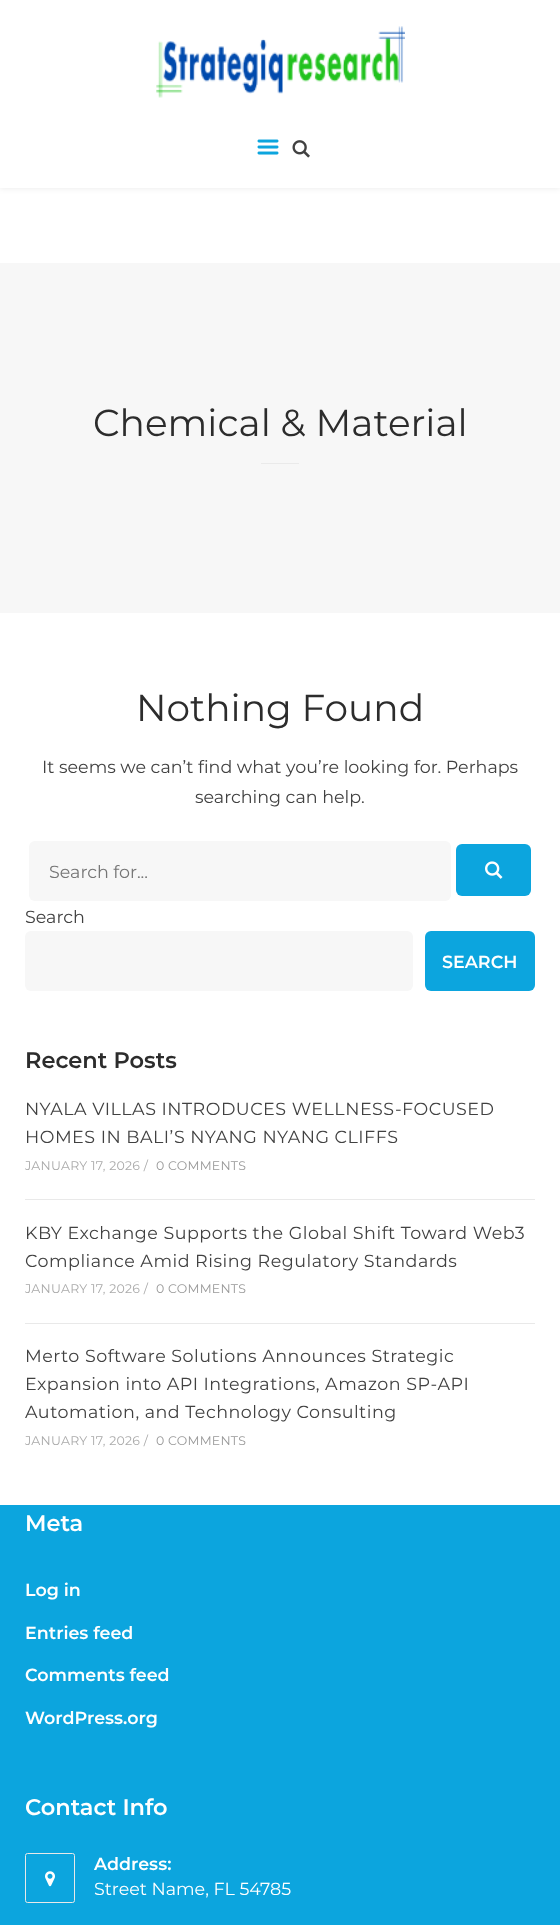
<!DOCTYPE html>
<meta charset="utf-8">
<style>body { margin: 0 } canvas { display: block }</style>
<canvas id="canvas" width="560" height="1925"></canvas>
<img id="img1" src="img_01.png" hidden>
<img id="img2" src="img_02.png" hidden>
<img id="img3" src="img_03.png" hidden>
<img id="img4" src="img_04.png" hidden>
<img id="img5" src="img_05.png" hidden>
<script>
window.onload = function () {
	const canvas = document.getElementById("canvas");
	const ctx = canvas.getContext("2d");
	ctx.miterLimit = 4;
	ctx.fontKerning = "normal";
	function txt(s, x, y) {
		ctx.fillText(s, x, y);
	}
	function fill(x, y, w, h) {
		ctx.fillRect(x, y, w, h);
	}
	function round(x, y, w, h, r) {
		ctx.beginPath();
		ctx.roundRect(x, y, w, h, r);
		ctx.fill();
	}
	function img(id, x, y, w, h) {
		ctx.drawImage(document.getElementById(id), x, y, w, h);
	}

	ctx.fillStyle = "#FFFFFF";
	fill(0, 0, 560, 1925);
	ctx.fillStyle = "rgba(0, 0, 0, 0.09)";
	ctx.filter = "blur(3px)";
	ctx.beginPath();
	ctx.rect(0, 0, 560, 188);
	ctx.fill();
	ctx.filter = "none";
	ctx.fillStyle = "#FFFFFF";
	fill(0, 0, 560, 188);
	img("img1", 156, 26, 249, 72);
	img("img2", 257, 139, 22, 16);
	img("img3", 292, 140, 18, 18);
	ctx.fillStyle = "#F7F7F7";
	fill(0, 263, 560, 350);
	ctx.fillStyle = "#EAEAEA";
	fill(261, 463, 38, 1);
	ctx.fillStyle = "#F7F7F7";
	round(29, 841, 422, 60, 6);
	ctx.fillStyle = "#0CA5DE";
	round(456, 844, 75, 52, 6);
	img("img4", 485, 861, 18, 18);
	ctx.fillStyle = "#F7F7F7";
	round(25, 931, 388, 60, 6);
	ctx.fillStyle = "#0CA5DE";
	round(425, 931, 110, 60, 6);
	ctx.fillStyle = "#E9E9E9";
	fill(25, 1199, 510, 1);
	fill(25, 1323, 510, 1);
	ctx.fillStyle = "#0CA5DE";
	fill(0, 1505, 560, 420);
	ctx.beginPath();
	ctx.roundRect(25.5, 1853.5, 49, 49, 2);
	ctx.strokeStyle = "#E9E9E9";
	ctx.stroke();
	img("img5", 45, 1871, 10, 16);
	ctx.font = "37.5px Montserrat";
	ctx.fillStyle = "#2C2C2C";
	txt("Chemical & Material", 93, 436);
	txt("Nothing Found", 136, 721);
	ctx.font = "17.5px Montserrat";
	ctx.fillStyle = "#414141";
	txt("It seems we can’t find what you’re looking for. Perhaps", 42, 773);
	txt("searching can help.", 195, 803);
	ctx.fillStyle = "#757575";
	txt("Search for...", 49, 878);
	ctx.fillStyle = "#414141";
	txt("Search", 25, 923);
	ctx.font = "600 17.5px Montserrat";
	ctx.fillStyle = "#FFFFFF";
	txt("SEARCH", 442, 968);
	ctx.font = "600 22.5px Montserrat";
	ctx.fillStyle = "#2C2C2C";
	txt("Recent Posts", 25, 1068);
	ctx.letterSpacing = "0.5px";
	ctx.font = "17.5px Montserrat";
	ctx.fillStyle = "#414141";
	txt("NYALA VILLAS INTRODUCES WELLNESS-FOCUSED", 25, 1115);
	txt("HOMES IN BALI’S NYANG NYANG CLIFFS", 25, 1143);
	ctx.letterSpacing = "0.25px";
	ctx.font = "12.5px Montserrat";
	ctx.fillStyle = "#AAAAAA";
	txt("JANUARY 17, 2026 /", 25, 1170);
	ctx.fillStyle = "#999999";
	txt("0 COMMENTS", 156, 1170);
	ctx.letterSpacing = "0.5px";
	ctx.font = "17.5px Montserrat";
	ctx.fillStyle = "#414141";
	txt("KBY Exchange Supports the Global Shift Toward Web3", 25, 1239);
	txt("Compliance Amid Rising Regulatory Standards", 25, 1267);
	ctx.letterSpacing = "0.25px";
	ctx.font = "12.5px Montserrat";
	ctx.fillStyle = "#AAAAAA";
	txt("JANUARY 17, 2026 /", 25, 1293);
	ctx.fillStyle = "#999999";
	txt("0 COMMENTS", 156, 1293);
	ctx.letterSpacing = "0.5px";
	ctx.font = "17.5px Montserrat";
	ctx.fillStyle = "#414141";
	txt("Merto Software Solutions Announces Strategic", 25, 1362);
	txt("Expansion into API Integrations, Amazon SP-API", 25, 1390);
	txt("Automation, and Technology Consulting", 25, 1418);
	ctx.letterSpacing = "0.25px";
	ctx.font = "12.5px Montserrat";
	ctx.fillStyle = "#AAAAAA";
	txt("JANUARY 17, 2026 /", 25, 1445);
	ctx.fillStyle = "#999999";
	txt("0 COMMENTS", 156, 1445);
	ctx.letterSpacing = "0px";
	ctx.font = "600 22.5px Montserrat";
	ctx.fillStyle = "#FFFFFF";
	txt("Meta", 25, 1531);
	ctx.font = "600 17.5px Montserrat";
	txt("Log in", 25, 1596);
	txt("Entries feed", 25, 1639);
	txt("Comments feed", 25, 1681);
	txt("WordPress.org", 25, 1724);
	ctx.font = "600 22.5px Montserrat";
	txt("Contact Info", 25, 1815);
	ctx.font = "600 17.5px Montserrat";
	txt("Address:", 94, 1870);
	ctx.font = "17.5px Montserrat";
	txt("Street Name, FL 54785", 94, 1895);
};
</script>
